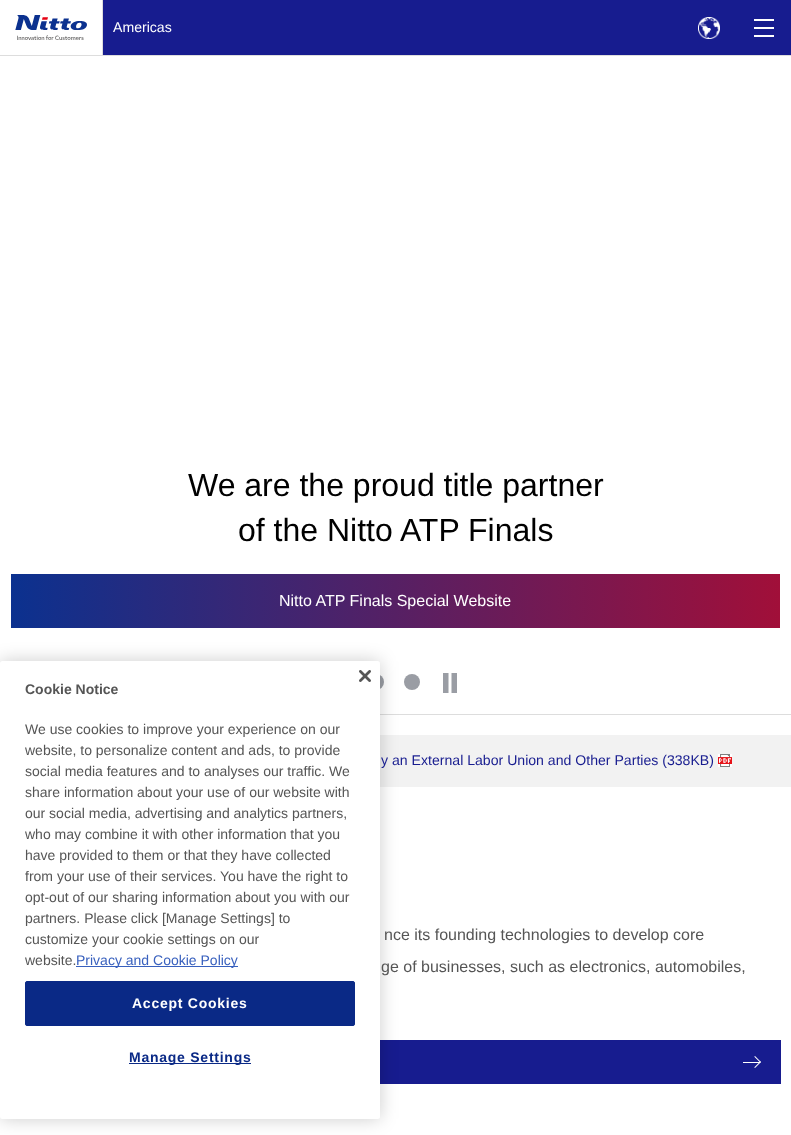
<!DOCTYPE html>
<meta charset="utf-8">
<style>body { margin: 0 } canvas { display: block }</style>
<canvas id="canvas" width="791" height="1135"></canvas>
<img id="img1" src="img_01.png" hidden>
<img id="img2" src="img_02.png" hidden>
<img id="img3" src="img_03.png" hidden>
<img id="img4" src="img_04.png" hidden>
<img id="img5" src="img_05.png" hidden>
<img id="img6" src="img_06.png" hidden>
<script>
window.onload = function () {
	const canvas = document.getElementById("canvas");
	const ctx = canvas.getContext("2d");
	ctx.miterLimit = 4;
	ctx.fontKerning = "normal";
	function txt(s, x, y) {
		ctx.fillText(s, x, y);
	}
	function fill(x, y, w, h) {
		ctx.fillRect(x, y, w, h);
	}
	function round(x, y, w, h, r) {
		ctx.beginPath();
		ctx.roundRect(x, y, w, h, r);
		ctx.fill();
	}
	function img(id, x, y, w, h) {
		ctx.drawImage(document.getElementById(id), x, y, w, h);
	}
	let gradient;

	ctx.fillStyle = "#FFFFFF";
	fill(0, 0, 791, 1135);
	ctx.fillStyle = "#DDDDDD";
	fill(0, 55, 791, 1);
	fill(102, 0, 1, 55);
	img("img1", 15, 15, 72, 25);
	ctx.fillStyle = "#171C8F";
	fill(103, 0, 688, 55);
	img("img2", 698, 17, 22, 22);
	ctx.fillStyle = "#FFFFFF";
	fill(754, 19, 20, 2);
	fill(754, 27, 20, 2);
	fill(754, 35, 20, 2);
	gradient = ctx.createLinearGradient(11, 601, 780, 601);
	gradient.addColorStop(0, "#0B318F");
	gradient.addColorStop(1, "#A10F39");
	ctx.fillStyle = gradient;
	fill(11, 574, 769, 54);
	ctx.fillStyle = "#DDDDDD";
	fill(380, 714, 411, 1);
	ctx.fillStyle = "#9A9DA4";
	ctx.beginPath();
	ctx.arc(376, 682, 8, 0, Math.PI * 2);
	ctx.fill();
	ctx.beginPath();
	ctx.arc(412, 682, 8, 0, Math.PI * 2);
	ctx.fill();
	img("img3", 443, 673, 14, 20);
	ctx.fillStyle = "#F2F2F2";
	fill(380, 735, 411, 52);
	img("img4", 718, 754, 14, 13);
	ctx.fillStyle = "#171C8F";
	fill(380, 1040, 401, 44);
	img("img5", 743, 1056, 18, 12);
	ctx.fillStyle = "rgba(0, 0, 0, 0.2)";
	ctx.filter = "blur(9px)";
	ctx.beginPath();
	ctx.roundRect(0, 661, 380, 458, 2.5);
	ctx.fill();
	ctx.filter = "none";
	ctx.fillStyle = "#FFFFFF";
	round(0, 661, 380, 458, 2.5);
	img("img6", 359, 670, 12, 12);
	ctx.fillStyle = "#3860BE";
	fill(76, 966, 162, 1);
	ctx.fillStyle = "#0A2986";
	ctx.beginPath();
	ctx.roundRect(25.5, 981.5, 329, 44, 1.5);
	ctx.fill();
	ctx.strokeStyle = "#0A2986";
	ctx.stroke();
	fill(129, 1063, 122, 1);
	ctx.font = "14.1px Liberation Sans";
	ctx.fillStyle = "#FFFFFF";
	txt("Americas", 113, 32);
	ctx.font = "32px Liberation Sans";
	ctx.fillStyle = "#000000";
	txt("We are the proud title partner", 188, 496);
	txt("of the Nitto ATP Finals", 238, 541);
	ctx.font = "16px Liberation Sans";
	ctx.fillStyle = "#FFFFFF";
	txt("Nitto ATP Finals Special Website", 279, 606);
	ctx.font = "14.1px Liberation Sans";
	ctx.fillStyle = "#171C8F";
	txt("y an External Labor Union and Other Parties (338KB)", 381, 765);
	ctx.font = "16px Liberation Sans";
	ctx.fillStyle = "#555555";
	txt("nce its founding technologies to develop core", 384, 940);
	txt("ge of businesses, such as electronics, automobiles,", 381, 972);
	ctx.font = "bold 14px Liberation Sans";
	txt("Cookie Notice", 25, 694);
	ctx.font = "14px Liberation Sans";
	txt("We use cookies to improve your experience on our", 25, 734);
	txt("website, to personalize content and ads, to provide", 25, 755);
	txt("social media features and to analyses our traffic. We", 25, 776);
	txt("share information about your use of our website with", 25, 797);
	txt("our social media, advertising and analytics partners,", 25, 818);
	txt("who may combine it with other information that you", 25, 839);
	txt("have provided to them or that they have collected", 25, 860);
	txt("from your use of their services. You have the right to", 25, 881);
	txt("opt-out of our sharing information about you with our", 25, 902);
	txt("partners. Please click [Manage Settings] to", 25, 923);
	txt("customize your cookie settings on our", 25, 944);
	txt("website.", 25, 965);
	ctx.fillStyle = "#3860BE";
	txt("Privacy and Cookie Policy", 76, 965);
	ctx.letterSpacing = "0.75px";
	ctx.font = "bold 14px Liberation Sans";
	ctx.fillStyle = "#FFFFFF";
	txt("Accept Cookies", 132, 1008);
	ctx.fillStyle = "#0A2986";
	txt("Manage Settings", 129, 1062);
};
</script>
